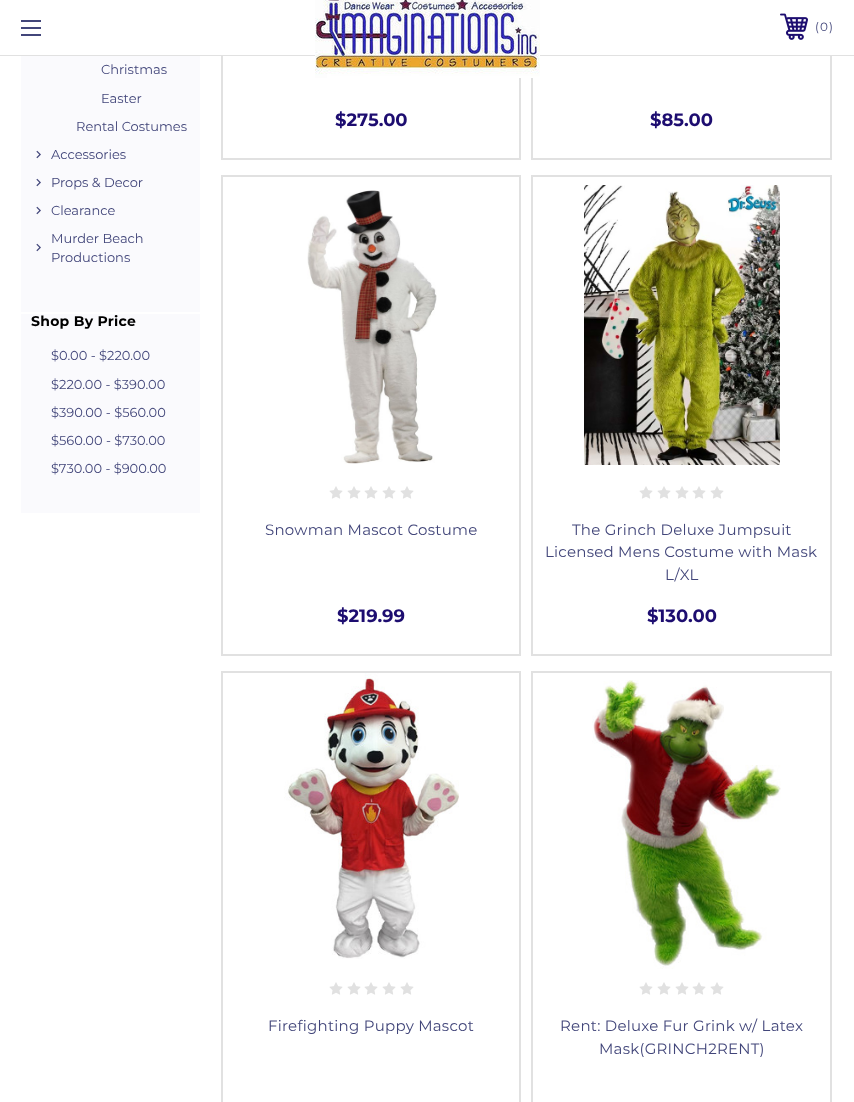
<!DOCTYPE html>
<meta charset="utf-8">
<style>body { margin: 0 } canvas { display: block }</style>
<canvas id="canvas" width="854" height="1102"></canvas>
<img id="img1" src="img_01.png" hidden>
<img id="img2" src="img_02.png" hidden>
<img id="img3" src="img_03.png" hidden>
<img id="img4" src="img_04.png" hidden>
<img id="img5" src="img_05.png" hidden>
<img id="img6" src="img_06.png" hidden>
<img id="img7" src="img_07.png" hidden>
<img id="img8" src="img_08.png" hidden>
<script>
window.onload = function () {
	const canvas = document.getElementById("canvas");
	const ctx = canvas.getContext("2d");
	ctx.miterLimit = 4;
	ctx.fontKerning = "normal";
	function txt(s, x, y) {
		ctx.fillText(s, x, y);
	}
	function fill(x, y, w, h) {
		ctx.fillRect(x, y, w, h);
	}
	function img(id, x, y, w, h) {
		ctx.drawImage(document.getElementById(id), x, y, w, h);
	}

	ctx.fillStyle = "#FFFFFF";
	fill(0, 0, 854, 1102);
	ctx.strokeStyle = "#E1E1E1";
	ctx.lineWidth = 2;
	ctx.strokeRect(222, -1, 298, 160);
	ctx.strokeRect(532, -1, 299, 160);
	fill(221, 0, 611, 55);
	ctx.fillStyle = "#E1E1E1";
	fill(0, 55, 854, 1);
	ctx.fillStyle = "#42467A";
	fill(21, 27, 20, 2);
	fill(21, 20, 20, 2);
	fill(21, 34, 20, 2);
	img("img1", 315, 0, 225, 78);
	img("img2", 780, 13, 28, 27);
	ctx.fillStyle = "#FAFAFD";
	fill(21, 56, 179, 457);
	ctx.fillStyle = "#FFFFFF";
	fill(21, 312, 179, 2);
	img("img3", 36, 150, 5, 9);
	img("img3", 36, 178, 5, 9);
	img("img3", 36, 206, 5, 9);
	img("img3", 36, 243, 5, 9);
	ctx.strokeRect(222, 176, 298, 479);
	img("img4", 307, 190, 130, 274);
	img("img5", 329, 486, 14, 13);
	img("img5", 347, 486, 14, 13);
	img("img5", 364, 486, 14, 13);
	img("img5", 382, 486, 14, 13);
	img("img5", 400, 486, 14, 13);
	ctx.strokeRect(532, 176, 299, 479);
	img("img6", 584, 185, 196, 280);
	img("img5", 639, 486, 14, 13);
	img("img5", 657, 486, 14, 13);
	img("img5", 675, 486, 14, 13);
	img("img5", 692, 486, 14, 13);
	img("img5", 710, 486, 14, 13);
	ctx.strokeRect(222, 672, 298, 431);
	img("img7", 284, 673, 175, 286);
	img("img5", 329, 982, 14, 13);
	img("img5", 347, 982, 14, 13);
	img("img5", 364, 982, 14, 13);
	img("img5", 382, 982, 14, 13);
	img("img5", 400, 982, 14, 13);
	ctx.strokeRect(532, 672, 299, 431);
	img("img8", 592, 680, 189, 289);
	img("img5", 639, 982, 14, 13);
	img("img5", 657, 982, 14, 13);
	img("img5", 675, 982, 14, 13);
	img("img5", 692, 982, 14, 13);
	img("img5", 710, 982, 14, 13);
	ctx.font = "12px Montserrat";
	ctx.fillStyle = "#42467A";
	txt("(", 815, 31);
	txt("0", 820, 31);
	txt(")", 829, 31);
	ctx.font = "13px Montserrat";
	txt("Christmas", 101, 74);
	txt("Easter", 101, 103);
	txt("Rental Costumes", 76, 131);
	txt("Accessories", 51, 159);
	txt("Props & Decor", 51, 187);
	txt("Clearance", 51, 215);
	txt("Murder Beach", 51, 243);
	txt("Productions", 51, 262);
	ctx.letterSpacing = "0.25px";
	ctx.font = "bold 14px Montserrat";
	ctx.fillStyle = "#000000";
	txt("Shop By Price", 31, 326);
	ctx.letterSpacing = "0px";
	ctx.font = "13px Montserrat";
	ctx.fillStyle = "#42467A";
	txt("$0.00 - $220.00", 51, 360);
	txt("$220.00 - $390.00", 51, 389);
	txt("$390.00 - $560.00", 51, 417);
	txt("$560.00 - $730.00", 51, 445);
	txt("$730.00 - $900.00", 51, 473);
	ctx.font = "bold 18px Montserrat";
	ctx.fillStyle = "#1D0D70";
	txt("$275.00", 335, 126);
	txt("$85.00", 650, 126);
	ctx.letterSpacing = "0.25px";
	ctx.font = "15px Montserrat";
	ctx.fillStyle = "#42467A";
	txt("Snowman Mascot Costume", 265, 535);
	ctx.letterSpacing = "0px";
	ctx.font = "bold 18px Montserrat";
	ctx.fillStyle = "#1D0D70";
	txt("$219.99", 337, 622);
	ctx.letterSpacing = "0.25px";
	ctx.font = "15px Montserrat";
	ctx.fillStyle = "#42467A";
	txt("The Grinch Deluxe Jumpsuit", 572, 535);
	txt("Licensed Mens Costume with Mask", 545, 557);
	txt("L/XL", 665, 580);
	ctx.letterSpacing = "0px";
	ctx.font = "bold 18px Montserrat";
	ctx.fillStyle = "#1D0D70";
	txt("$130.00", 647, 622);
	ctx.letterSpacing = "0.25px";
	ctx.font = "15px Montserrat";
	ctx.fillStyle = "#42467A";
	txt("Firefighting Puppy Mascot", 268, 1031);
	txt("Rent: Deluxe Fur Grink w/ Latex", 560, 1031);
	txt("Mask(GRINCH2RENT)", 599, 1054);
};
</script>
